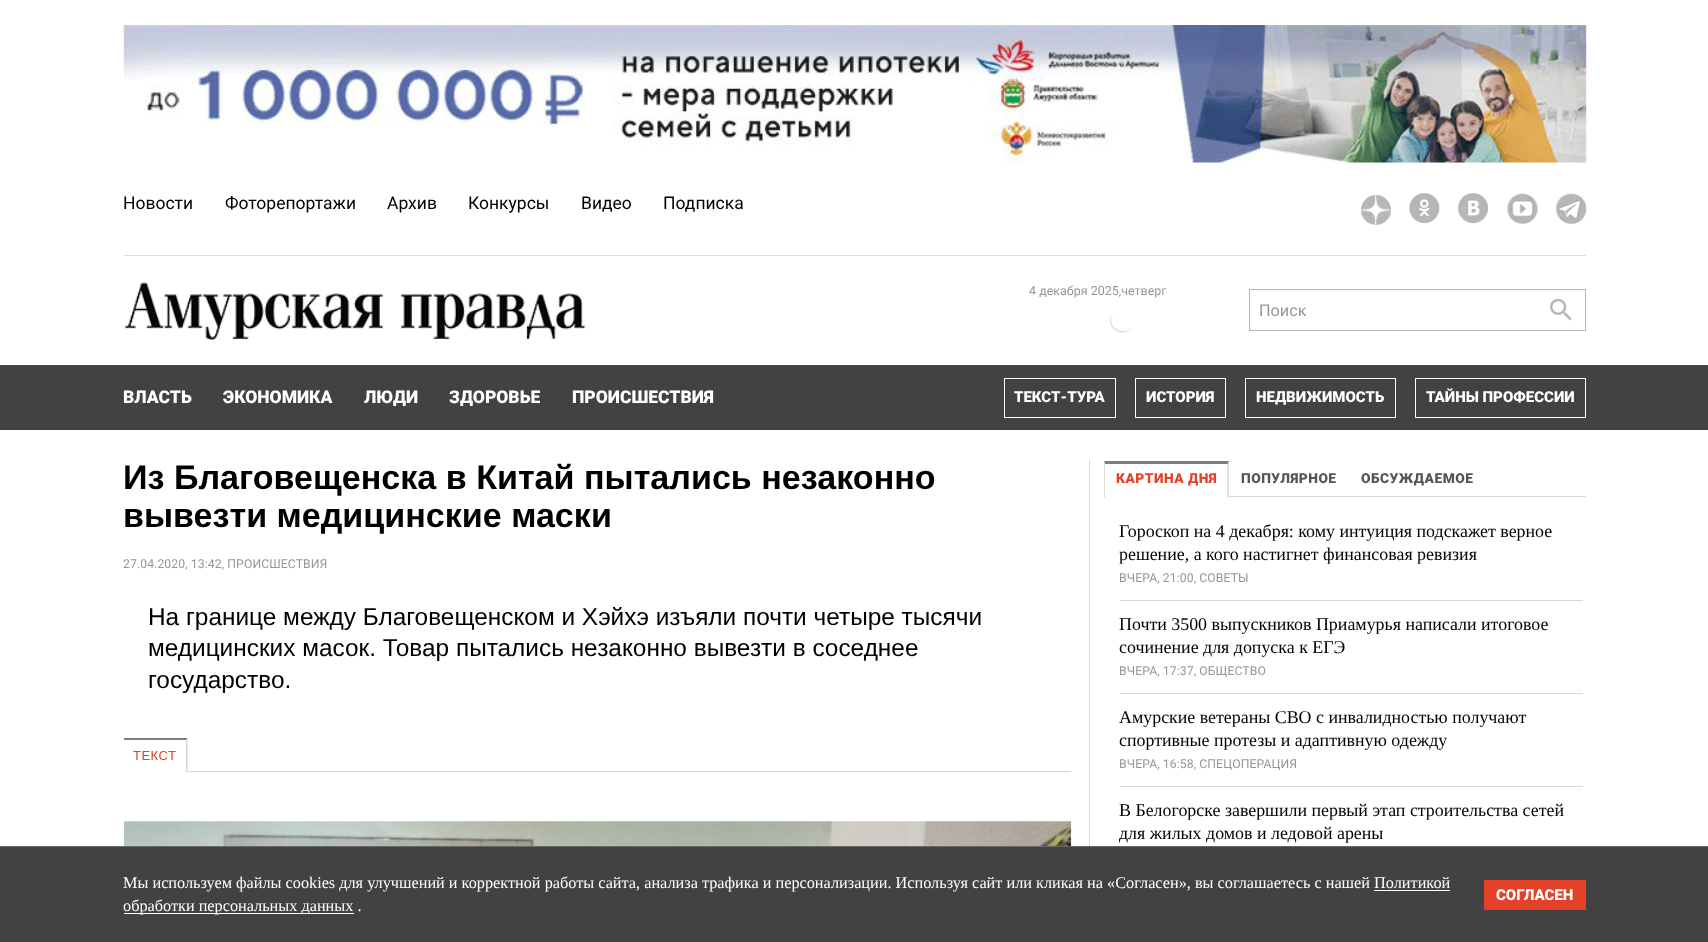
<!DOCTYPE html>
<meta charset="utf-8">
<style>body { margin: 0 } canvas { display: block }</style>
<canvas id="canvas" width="1708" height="942"></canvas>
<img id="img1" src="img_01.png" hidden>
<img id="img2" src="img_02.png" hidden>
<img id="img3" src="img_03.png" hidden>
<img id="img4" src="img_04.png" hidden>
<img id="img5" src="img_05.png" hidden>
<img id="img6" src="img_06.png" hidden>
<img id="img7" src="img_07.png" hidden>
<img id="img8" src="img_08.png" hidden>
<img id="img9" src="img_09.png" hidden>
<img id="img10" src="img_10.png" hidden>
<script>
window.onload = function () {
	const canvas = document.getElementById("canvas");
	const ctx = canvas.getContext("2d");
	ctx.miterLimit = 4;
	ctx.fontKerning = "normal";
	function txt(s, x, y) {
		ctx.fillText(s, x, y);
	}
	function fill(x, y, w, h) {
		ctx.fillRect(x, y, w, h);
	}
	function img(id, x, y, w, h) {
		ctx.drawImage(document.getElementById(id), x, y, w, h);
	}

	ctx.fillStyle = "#FFFFFF";
	fill(0, 0, 1708, 942);
	img("img1", 123, 25, 1464, 138);
	ctx.fillStyle = "#DBDBDB";
	fill(124, 255, 1462, 1);
	ctx.fillStyle = "#B6B6B6";
	ctx.beginPath();
	ctx.arc(1376, 210, 15, 0, Math.PI * 2);
	ctx.fill();
	img("img2", 1361, 195, 29, 30);
	img("img3", 1409, 193, 31, 31);
	img("img4", 1458, 193, 31, 31);
	img("img5", 1507, 193, 31, 31);
	img("img6", 1556, 193, 31, 31);
	img("img7", 124, 282, 461, 58);
	img("img8", 1109, 314, 23, 19);
	ctx.strokeStyle = "#B7B7B7";
	ctx.strokeRect(1249.5, 289.5, 336, 41);
	img("img9", 1550, 299, 22, 22);
	ctx.fillStyle = "#424242";
	fill(0, 365, 1708, 65);
	ctx.strokeStyle = "#FFFFFF";
	ctx.strokeRect(1004.5, 378.5, 111, 39);
	ctx.strokeRect(1135.5, 378.5, 90, 39);
	ctx.strokeRect(1245.5, 378.5, 150, 39);
	ctx.strokeRect(1415.5, 378.5, 170, 39);
	ctx.fillStyle = "#D8D8D8";
	fill(188, 771, 883, 1);
	ctx.save();
	ctx.beginPath();
	ctx.rect(124, 460, 947, 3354);
	ctx.clip();
	ctx.fillStyle = "#7F7F7F";
	ctx.beginPath();
	ctx.moveTo(122, 738);
	ctx.lineTo(188, 738);
	ctx.lineTo(186, 740);
	ctx.lineTo(124, 740);
	ctx.closePath();
	ctx.fill();
	ctx.restore();
	ctx.beginPath();
	ctx.moveTo(187.5, 737.5);
	ctx.lineTo(187.5, 772.5);
	ctx.lineTo(186, 772.5);
	ctx.lineTo(186, 740);
	ctx.closePath();
	ctx.fill();
	img("img10", 123, 821, 949, 25);
	fill(1089, 460, 1, 386);
	fill(1229, 496, 357, 1);
	ctx.fillStyle = "#7F7F7F";
	ctx.beginPath();
	ctx.moveTo(1104, 461);
	ctx.lineTo(1229, 461);
	ctx.lineTo(1228, 464);
	ctx.lineTo(1105, 464);
	ctx.closePath();
	ctx.fill();
	ctx.fillStyle = "#D8D8D8";
	ctx.beginPath();
	ctx.moveTo(1229, 461);
	ctx.lineTo(1229, 497.5);
	ctx.lineTo(1227.5, 497.5);
	ctx.lineTo(1227.5, 464);
	ctx.closePath();
	ctx.fill();
	ctx.beginPath();
	ctx.moveTo(1104, 497.5);
	ctx.lineTo(1104, 461);
	ctx.lineTo(1105, 464);
	ctx.lineTo(1105, 497.5);
	ctx.closePath();
	ctx.fill();
	fill(1120, 600, 463, 1);
	fill(1120, 693, 463, 1);
	fill(1120, 786, 463, 1);
	ctx.fillStyle = "#424242";
	fill(0, 847, 1708, 95);
	ctx.fillStyle = "#686868";
	fill(0, 846, 1708, 1);
	ctx.fillStyle = "#FFFFFF";
	fill(1374, 890, 76, 1);
	fill(124, 913, 230, 1);
	ctx.fillStyle = "#E54028";
	fill(1484, 880, 102, 30);
	ctx.font = "17.5px Roboto";
	ctx.fillStyle = "#000000";
	txt("Новости", 123, 209);
	txt("Фоторепортажи", 225, 209);
	txt("Архив", 387, 209);
	txt("Конкурсы", 468, 209);
	txt("Видео", 581, 209);
	txt("Подписка", 663, 209);
	ctx.font = "12.5px Roboto";
	ctx.fillStyle = "#969696";
	txt("4 декабря 2025,четверг", 1029, 295);
	ctx.font = "16.25px Roboto";
	txt("Поиск", 1259, 316);
	ctx.font = "900 17.5px Roboto";
	ctx.fillStyle = "#FFFFFF";
	txt("ВЛАСТЬ", 123, 403);
	txt("ЭКОНОМИКА", 223, 403);
	txt("ЛЮДИ", 364, 403);
	txt("ЗДОРОВЬЕ", 449, 403);
	txt("ПРОИСШЕСТВИЯ", 572, 403);
	ctx.font = "900 15px Roboto";
	txt("ТЕКСТ-ТУРА", 1014, 402);
	txt("ИСТОРИЯ", 1146, 402);
	txt("НЕДВИЖИМОСТЬ", 1256, 402);
	txt("ТАЙНЫ ПРОФЕССИИ", 1426, 402);
	ctx.font = "bold 34.1px Liberation Sans";
	ctx.fillStyle = "#000000";
	txt("Из Благовещенска в Китай пытались незаконно", 123, 489);
	txt("вывезти медицинские маски", 123, 527);
	ctx.letterSpacing = "0.1px";
	ctx.font = "12.2px Roboto";
	ctx.fillStyle = "#969696";
	txt("27.04.2020, 13:42, ПРОИСШЕСТВИЯ", 123, 568);
	ctx.letterSpacing = "0px";
	ctx.font = "24.4px Liberation Sans";
	ctx.fillStyle = "#000000";
	txt("На границе между Благовещенском и Хэйхэ изъяли почти четыре тысячи", 148, 625);
	txt("медицинских масок. Товар пытались незаконно вывезти в соседнее", 148, 656);
	txt("государство.", 148, 688);
	ctx.letterSpacing = "0.5px";
	ctx.font = "13px Liberation Sans";
	ctx.fillStyle = "#E54028";
	txt("ТЕКСТ", 133, 760);
	ctx.font = "900 13.75px Roboto";
	txt("КАРТИНА ДНЯ", 1116, 483);
	ctx.fillStyle = "#555555";
	txt("ПОПУЛЯРНОЕ", 1241, 483);
	txt("ОБСУЖДАЕМОЕ", 1361, 483);
	ctx.letterSpacing = "0px";
	ctx.font = "17.9px Liberation Serif";
	ctx.fillStyle = "#000000";
	txt("Гороскоп на 4 декабря: кому интуиция подскажет верное", 1119, 537);
	txt("решение, а кого настигнет финансовая ревизия", 1119, 560);
	ctx.letterSpacing = "0.1px";
	ctx.font = "12.2px Roboto";
	ctx.fillStyle = "#969696";
	txt("ВЧЕРА, 21:00, СОВЕТЫ", 1119, 582);
	ctx.letterSpacing = "0px";
	ctx.font = "17.9px Liberation Serif";
	ctx.fillStyle = "#000000";
	txt("Почти 3500 выпускников Приамурья написали итоговое", 1119, 630);
	txt("сочинение для допуска к ЕГЭ", 1119, 653);
	ctx.letterSpacing = "0.1px";
	ctx.font = "12.2px Roboto";
	ctx.fillStyle = "#969696";
	txt("ВЧЕРА, 17:37, ОБЩЕСТВО", 1119, 675);
	ctx.letterSpacing = "0px";
	ctx.font = "17.9px Liberation Serif";
	ctx.fillStyle = "#000000";
	txt("Амурские ветераны СВО с инвалидностью получают", 1119, 723);
	txt("спортивные протезы и адаптивную одежду", 1119, 746);
	ctx.letterSpacing = "0.1px";
	ctx.font = "12.2px Roboto";
	ctx.fillStyle = "#969696";
	txt("ВЧЕРА, 16:58, СПЕЦОПЕРАЦИЯ", 1119, 768);
	ctx.letterSpacing = "0px";
	ctx.font = "17.9px Liberation Serif";
	ctx.fillStyle = "#000000";
	txt("В Белогорске завершили первый этап строительства сетей", 1119, 816);
	txt("для жилых домов и ледовой арены", 1119, 839);
	ctx.font = "16.25px Liberation Serif";
	ctx.fillStyle = "#FFFFFF";
	txt("Мы используем файлы cookies для улучшений и корректной работы сайта, анализа трафика и персонализации. Используя сайт или кликая на «Согласен», вы соглашаетесь с нашей Политикой", 123, 888);
	txt("обработки персональных данных .", 123, 911);
	ctx.font = "900 15px Roboto";
	txt("СОГЛАСЕН", 1496, 900);
};
</script>
